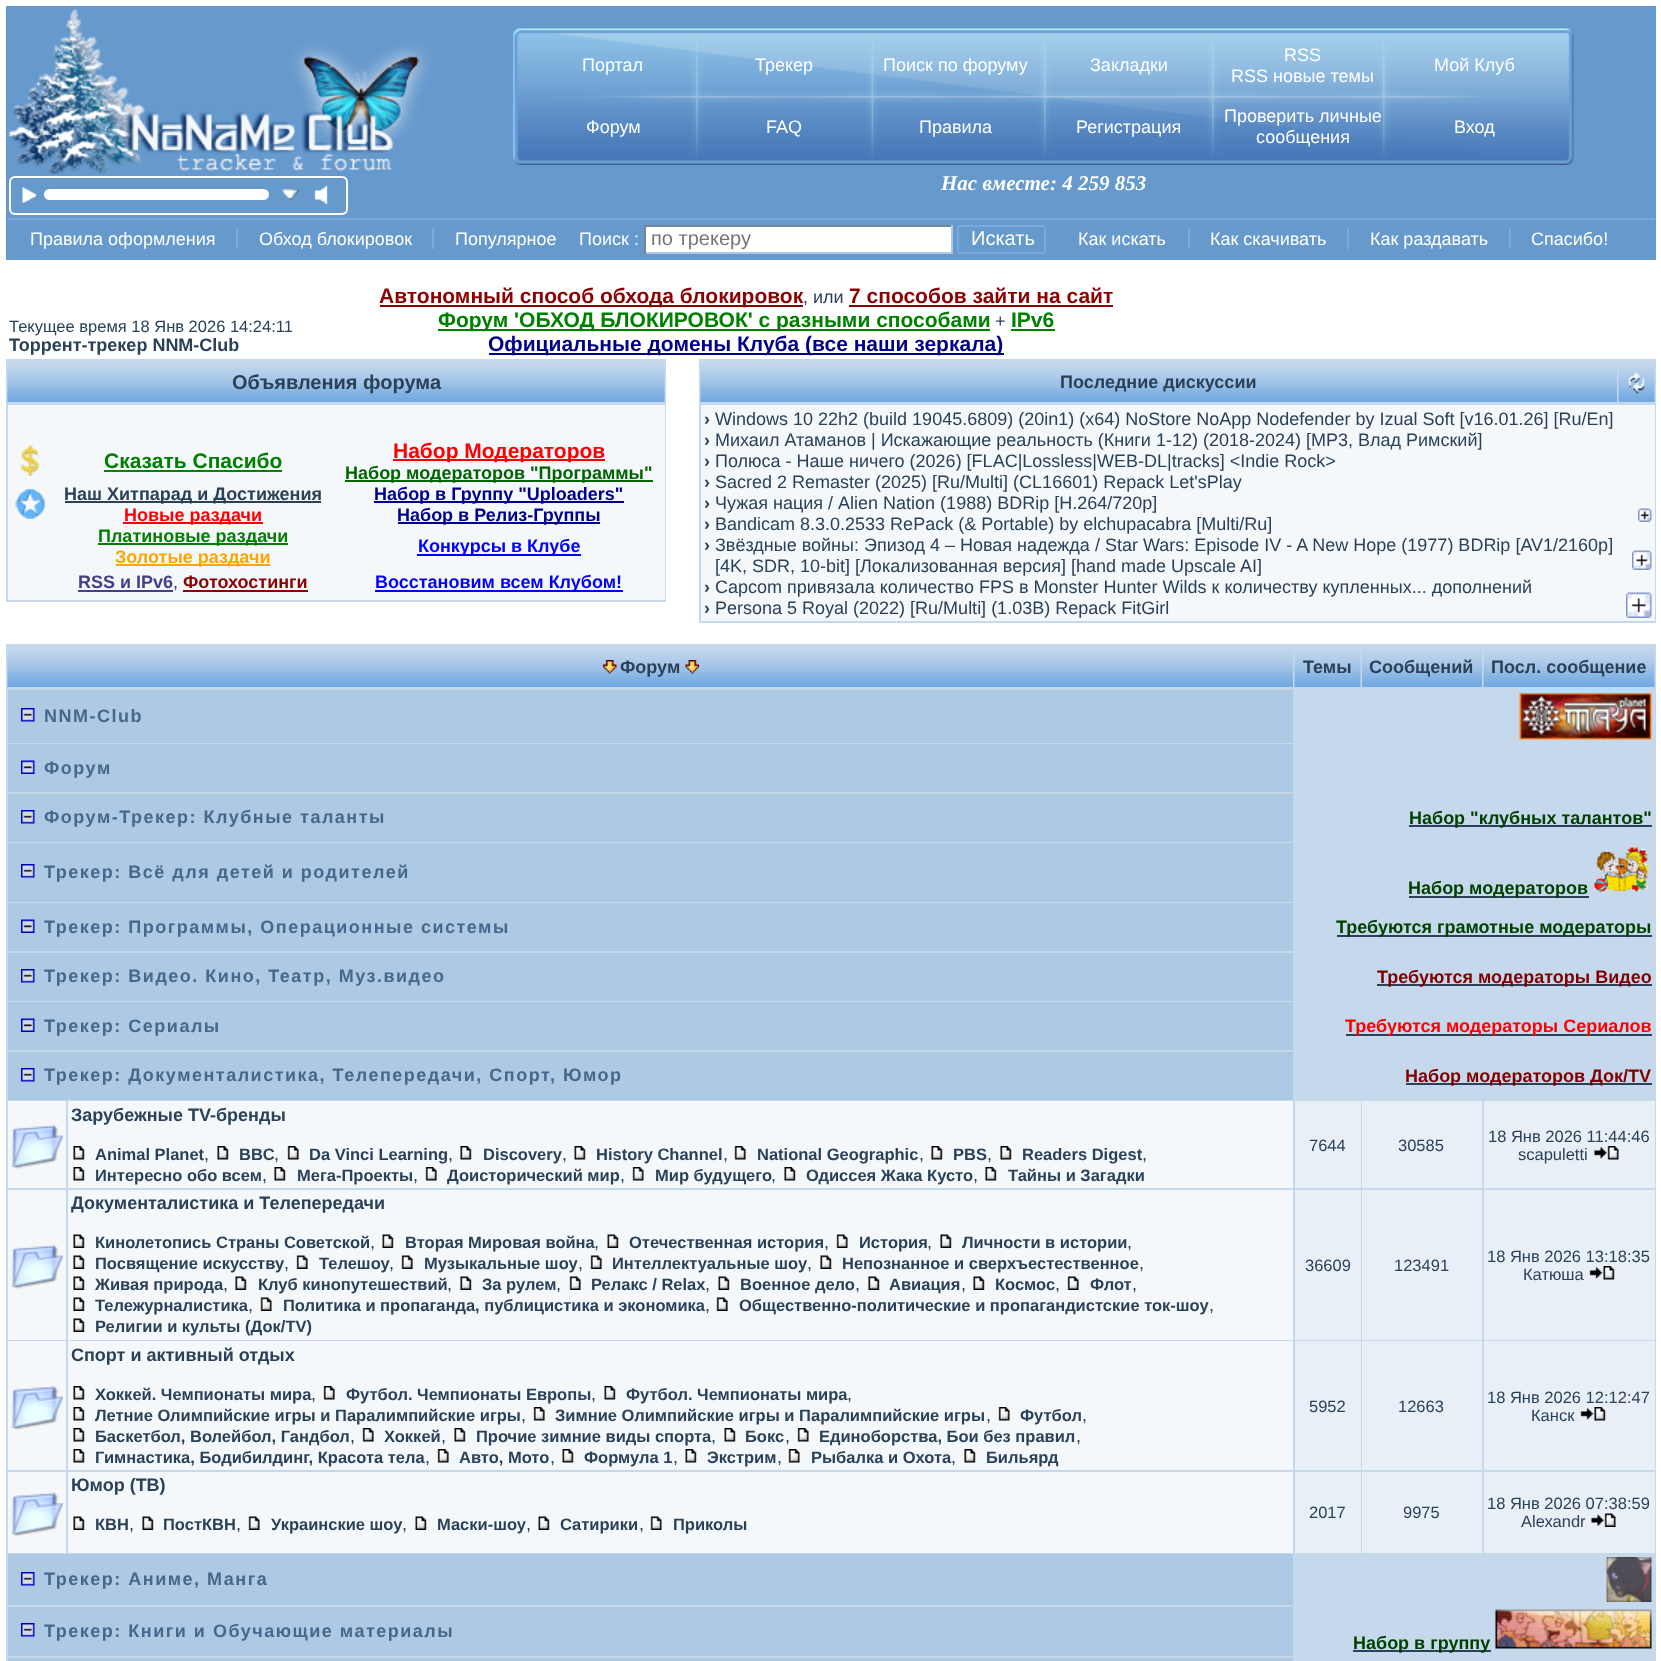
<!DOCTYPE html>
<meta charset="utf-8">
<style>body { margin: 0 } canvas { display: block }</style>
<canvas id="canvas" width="1661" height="1661"></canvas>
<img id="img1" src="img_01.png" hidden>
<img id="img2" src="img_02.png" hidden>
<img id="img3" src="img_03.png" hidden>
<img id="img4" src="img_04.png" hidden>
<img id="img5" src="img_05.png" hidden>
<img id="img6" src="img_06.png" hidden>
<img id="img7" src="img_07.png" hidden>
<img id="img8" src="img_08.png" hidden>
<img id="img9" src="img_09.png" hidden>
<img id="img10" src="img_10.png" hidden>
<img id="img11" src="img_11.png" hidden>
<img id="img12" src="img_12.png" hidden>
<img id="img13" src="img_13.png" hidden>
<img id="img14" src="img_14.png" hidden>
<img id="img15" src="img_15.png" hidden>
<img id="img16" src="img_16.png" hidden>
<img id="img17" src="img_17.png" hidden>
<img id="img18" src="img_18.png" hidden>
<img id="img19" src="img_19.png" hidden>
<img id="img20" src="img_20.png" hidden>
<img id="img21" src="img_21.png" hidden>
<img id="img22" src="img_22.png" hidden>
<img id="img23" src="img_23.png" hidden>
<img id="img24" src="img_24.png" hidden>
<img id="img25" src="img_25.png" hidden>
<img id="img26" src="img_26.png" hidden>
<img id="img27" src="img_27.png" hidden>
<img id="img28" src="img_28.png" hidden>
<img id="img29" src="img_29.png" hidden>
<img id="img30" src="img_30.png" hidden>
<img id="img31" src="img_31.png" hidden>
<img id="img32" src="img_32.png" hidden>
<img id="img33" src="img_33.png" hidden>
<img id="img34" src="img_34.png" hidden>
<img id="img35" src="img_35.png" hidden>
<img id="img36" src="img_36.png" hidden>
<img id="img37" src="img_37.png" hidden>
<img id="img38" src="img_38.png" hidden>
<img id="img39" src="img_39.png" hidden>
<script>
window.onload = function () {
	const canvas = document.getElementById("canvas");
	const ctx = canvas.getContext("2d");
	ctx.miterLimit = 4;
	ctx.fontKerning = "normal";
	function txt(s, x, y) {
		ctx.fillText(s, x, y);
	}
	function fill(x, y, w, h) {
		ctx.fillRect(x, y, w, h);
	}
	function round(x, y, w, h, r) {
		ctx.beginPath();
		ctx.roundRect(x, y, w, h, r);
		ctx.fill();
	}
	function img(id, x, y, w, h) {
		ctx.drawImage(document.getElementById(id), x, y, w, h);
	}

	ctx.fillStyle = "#FFFFFF";
	fill(0, 0, 1661, 1661);
	ctx.fillStyle = "#6699CC";
	fill(6, 6, 1650, 254);
	img("img1", 8, 9, 423, 165);
	ctx.beginPath();
	ctx.roundRect(10, 177, 337, 37, 5);
	ctx.strokeStyle = "#FFFFFF";
	ctx.lineWidth = 2;
	ctx.stroke();
	img("img2", 22, 187, 14, 16);
	ctx.fillStyle = "#FFFFFF";
	round(44, 189, 225, 11, 5.5);
	img("img3", 282, 189, 17, 11);
	img("img4", 314, 185, 14, 20);
	img("img5", 513, 28, 1061, 137);
	ctx.fillStyle = "#78A9E1";
	fill(8, 218, 1647, 2);
	fill(236, 228, 2, 21);
	fill(432, 228, 2, 21);
	ctx.fillStyle = "#FFFFFF";
	fill(646, 227, 305, 25);
	ctx.fillStyle = "#748698";
	fill(644, 225, 309, 2);
	ctx.fillStyle = "#AEC9E4";
	fill(951, 225, 2, 29);
	fill(644, 252, 309, 2);
	ctx.fillStyle = "#748698";
	fill(644, 225, 2, 29);
	ctx.beginPath();
	ctx.roundRect(958, 226, 87, 27, 2);
	ctx.strokeStyle = "#78A9E1";
	ctx.stroke();
	ctx.fillStyle = "#78A9E1";
	fill(1188, 228, 2, 21);
	fill(1347, 228, 2, 21);
	fill(1509, 228, 2, 21);
	ctx.fillStyle = "#8B0000";
	fill(380, 305, 423, 2);
	fill(849, 305, 264, 2);
	ctx.fillStyle = "#008000";
	fill(438, 329, 552, 2);
	fill(1011, 329, 44, 2);
	ctx.fillStyle = "#00008B";
	fill(489, 353, 515, 2);
	ctx.fillStyle = "#C6D9EC";
	fill(6, 359, 660, 243);
	img("img6", 7, 364, 658, 38);
	ctx.fillStyle = "#F4F8FB";
	fill(8, 405, 657, 195);
	img("img7", 20, 445, 20, 31);
	ctx.fillStyle = "#008000";
	fill(104, 470, 178, 2);
	ctx.fillStyle = "#FF0000";
	fill(393, 459, 212, 2);
	ctx.fillStyle = "#006400";
	fill(345, 480, 308, 2);
	img("img8", 15, 489, 30, 30);
	ctx.fillStyle = "#2B4157";
	fill(65, 501, 256, 2);
	ctx.fillStyle = "#FF0000";
	fill(123, 522, 140, 2);
	ctx.fillStyle = "#00008B";
	fill(374, 501, 250, 2);
	fill(398, 522, 202, 2);
	ctx.fillStyle = "#008000";
	fill(98, 543, 190, 2);
	ctx.fillStyle = "#FFA500";
	fill(116, 564, 154, 2);
	ctx.fillStyle = "#0000FF";
	fill(417, 554, 164, 2);
	ctx.fillStyle = "#483D8B";
	fill(78, 590, 95, 2);
	ctx.fillStyle = "#8B0000";
	fill(183, 590, 125, 2);
	ctx.fillStyle = "#0000FF";
	fill(375, 590, 248, 2);
	ctx.fillStyle = "#C6D9EC";
	fill(699, 359, 957, 264);
	img("img9", 700, 364, 917, 38);
	img("img10", 1618, 364, 37, 38);
	img("img11", 1628, 371, 17, 23);
	ctx.fillStyle = "#F4F8FB";
	fill(701, 405, 954, 216);
	img("img12", 1638, 508, 14, 14);
	img("img13", 1632, 550, 20, 20);
	img("img14", 1626, 592, 26, 26);
	ctx.fillStyle = "#C6D9EC";
	fill(6, 644, 1650, 1017);
	img("img15", 7, 649, 1286, 38);
	img("img16", 603, 660, 14, 14);
	img("img17", 685, 660, 14, 14);
	img("img18", 1294, 649, 67, 38);
	img("img19", 1362, 649, 120, 38);
	img("img20", 1483, 649, 172, 38);
	ctx.fillStyle = "#AEC9E4";
	fill(8, 690, 1285, 53);
	img("img21", 21, 708, 14, 14);
	img("img22", 1519, 693, 133, 47);
	fill(8, 744, 1285, 48);
	img("img23", 21, 760, 14, 14);
	fill(8, 794, 1285, 48);
	img("img21", 21, 810, 14, 14);
	ctx.fillStyle = "#2B4157";
	fill(1409, 825, 243, 2);
	ctx.fillStyle = "#AEC9E4";
	fill(8, 843, 1285, 59);
	img("img21", 21, 864, 14, 14);
	ctx.fillStyle = "#2B4157";
	fill(1409, 896, 180, 2);
	img("img24", 1594, 846, 57, 47);
	ctx.fillStyle = "#AEC9E4";
	fill(8, 903, 1285, 48);
	img("img23", 21, 919, 14, 14);
	ctx.fillStyle = "#2B4157";
	fill(1337, 935, 315, 2);
	ctx.fillStyle = "#AEC9E4";
	fill(8, 953, 1285, 48);
	img("img21", 21, 969, 14, 14);
	ctx.fillStyle = "#2B4157";
	fill(1377, 984, 275, 2);
	ctx.fillStyle = "#AEC9E4";
	fill(8, 1002, 1285, 48);
	img("img23", 21, 1018, 14, 14);
	ctx.fillStyle = "#2B4157";
	fill(1346, 1034, 306, 2);
	ctx.fillStyle = "#AEC9E4";
	fill(8, 1052, 1285, 48);
	img("img21", 21, 1068, 14, 14);
	ctx.fillStyle = "#2B4157";
	fill(1406, 1083, 246, 2);
	ctx.fillStyle = "#F4F8FB";
	fill(8, 1101, 58, 87);
	img("img25", 11, 1124, 52, 46);
	fill(68, 1101, 1225, 87);
	img("img26", 73, 1146, 12, 14);
	img("img26", 217, 1146, 12, 14);
	img("img27", 287, 1146, 12, 14);
	img("img26", 460, 1146, 12, 14);
	img("img28", 574, 1146, 12, 14);
	img("img27", 734, 1146, 12, 14);
	img("img26", 931, 1146, 12, 14);
	img("img26", 1000, 1146, 12, 14);
	img("img26", 73, 1167, 12, 14);
	img("img26", 274, 1167, 12, 14);
	img("img27", 425, 1167, 12, 14);
	img("img29", 632, 1167, 12, 14);
	img("img26", 784, 1167, 12, 14);
	img("img26", 985, 1167, 12, 14);
	ctx.fillStyle = "#E8EFF7";
	fill(1295, 1101, 66, 87);
	fill(1362, 1101, 120, 87);
	fill(1484, 1101, 171, 87);
	img("img30", 1594, 1146, 25, 14);
	ctx.fillStyle = "#F4F8FB";
	fill(8, 1190, 58, 150);
	img("img25", 11, 1244, 52, 46);
	fill(68, 1190, 1225, 150);
	img("img31", 73, 1234, 12, 14);
	img("img32", 382, 1234, 12, 14);
	img("img32", 607, 1234, 12, 14);
	img("img33", 836, 1234, 12, 14);
	img("img31", 940, 1234, 12, 14);
	img("img31", 73, 1255, 12, 14);
	img("img34", 296, 1255, 12, 14);
	img("img34", 401, 1255, 12, 14);
	img("img34", 590, 1255, 12, 14);
	img("img31", 820, 1255, 12, 14);
	img("img31", 73, 1276, 12, 14);
	img("img31", 235, 1276, 12, 14);
	img("img31", 460, 1276, 12, 14);
	img("img34", 569, 1276, 12, 14);
	img("img32", 718, 1276, 12, 14);
	img("img31", 868, 1276, 12, 14);
	img("img31", 973, 1276, 12, 14);
	img("img34", 1067, 1276, 12, 14);
	img("img31", 73, 1297, 12, 14);
	img("img33", 260, 1297, 12, 14);
	img("img34", 716, 1297, 12, 14);
	img("img31", 73, 1318, 12, 14);
	ctx.fillStyle = "#E8EFF7";
	fill(1295, 1190, 66, 150);
	fill(1362, 1190, 120, 150);
	fill(1484, 1190, 171, 150);
	img("img35", 1589, 1266, 26, 14);
	ctx.fillStyle = "#F4F8FB";
	fill(8, 1341, 58, 129);
	img("img25", 11, 1385, 52, 46);
	fill(68, 1341, 1225, 129);
	img("img26", 73, 1386, 12, 14);
	img("img27", 323, 1386, 12, 14);
	img("img28", 604, 1386, 12, 14);
	img("img26", 73, 1407, 12, 14);
	img("img27", 533, 1407, 12, 14);
	img("img29", 998, 1407, 12, 14);
	img("img26", 73, 1428, 12, 14);
	img("img27", 362, 1428, 12, 14);
	img("img26", 454, 1428, 12, 14);
	img("img28", 724, 1428, 12, 14);
	img("img29", 797, 1428, 12, 14);
	img("img26", 73, 1449, 12, 14);
	img("img27", 437, 1449, 12, 14);
	img("img28", 562, 1449, 12, 14);
	img("img28", 685, 1449, 12, 14);
	img("img29", 788, 1449, 12, 14);
	img("img26", 964, 1449, 12, 14);
	ctx.fillStyle = "#E8EFF7";
	fill(1295, 1341, 66, 129);
	fill(1362, 1341, 120, 129);
	fill(1484, 1341, 171, 129);
	img("img35", 1580, 1407, 26, 14);
	ctx.fillStyle = "#F4F8FB";
	fill(8, 1472, 58, 81);
	img("img36", 11, 1492, 52, 45);
	fill(68, 1472, 1225, 81);
	img("img31", 73, 1516, 12, 14);
	img("img31", 142, 1516, 12, 14);
	img("img33", 248, 1516, 12, 14);
	img("img32", 415, 1516, 12, 14);
	img("img32", 538, 1516, 12, 14);
	img("img33", 650, 1516, 12, 14);
	ctx.fillStyle = "#E8EFF7";
	fill(1295, 1472, 66, 81);
	fill(1362, 1472, 120, 81);
	fill(1484, 1472, 171, 81);
	img("img37", 1591, 1513, 25, 14);
	ctx.fillStyle = "#AEC9E4";
	fill(8, 1554, 1285, 51);
	img("img21", 21, 1572, 14, 14);
	img("img38", 1606, 1557, 46, 45);
	fill(8, 1607, 1285, 49);
	img("img21", 21, 1623, 14, 14);
	ctx.fillStyle = "#2B4157";
	fill(1353, 1650, 138, 2);
	img("img39", 1495, 1609, 157, 40);
	ctx.fillStyle = "#AEC9E4";
	fill(8, 1658, 1285, 3);
	ctx.font = "18px Liberation Sans";
	ctx.fillStyle = "#FFFFFF";
	txt("Портал", 582, 71);
	txt("Трекер", 755, 71);
	txt("Поиск по форуму", 883, 71);
	txt("Закладки", 1090, 71);
	txt("RSS", 1284, 61);
	txt("RSS новые темы", 1231, 82);
	txt("Мой Клуб", 1434, 71);
	txt("Форум", 586, 133);
	txt("FAQ", 766, 133);
	txt("Правила", 919, 133);
	txt("Регистрация", 1076, 133);
	txt("Проверить личные", 1224, 122);
	txt("сообщения", 1256, 143);
	txt("Вход", 1454, 133);
	ctx.font = "italic bold 21px Liberation Serif";
	txt("Нас вместе: 4 259 853", 941, 190);
	ctx.font = "18px Liberation Sans";
	txt("Правила оформления", 30, 245);
	txt("Обход блокировок", 259, 245);
	txt("Популярное", 455, 245);
	txt("Поиск :", 579, 245);
	ctx.font = "20px Liberation Sans";
	ctx.fillStyle = "#757575";
	txt("по трекеру", 651, 245);
	ctx.fillStyle = "#FFFFFF";
	txt("Искать", 971, 245);
	ctx.font = "18px Liberation Sans";
	txt("Как искать", 1078, 245);
	txt("Как скачивать", 1210, 245);
	txt("Как раздавать", 1370, 245);
	txt("Спасибо!", 1531, 245);
	ctx.font = "16.5px Liberation Sans";
	ctx.fillStyle = "#2B4157";
	txt("Текущее время 18 Янв 2026 14:24:11", 9, 332);
	ctx.font = "bold 18px Liberation Sans";
	txt("Торрент-трекер NNM-Club", 9, 351);
	ctx.font = "bold 21px Liberation Sans";
	ctx.fillStyle = "#8B0000";
	txt("Автономный способ обхода блокировок", 379, 303);
	ctx.font = "18px Liberation Sans";
	ctx.fillStyle = "#2B4157";
	txt(", или", 803, 303);
	ctx.font = "bold 21px Liberation Sans";
	ctx.fillStyle = "#8B0000";
	txt("7 способов зайти на сайт", 849, 303);
	ctx.fillStyle = "#008000";
	txt("Форум 'ОБХОД БЛОКИРОВОК' с разными способами", 438, 327);
	ctx.font = "18px Liberation Sans";
	ctx.fillStyle = "#2B4157";
	txt("+", 995, 327);
	ctx.font = "bold 21px Liberation Sans";
	ctx.fillStyle = "#008000";
	txt("IPv6", 1011, 327);
	ctx.fillStyle = "#00008B";
	txt("Официальные домены Клуба (все наши зеркала)", 488, 351);
	ctx.font = "bold 20px Liberation Sans";
	ctx.fillStyle = "#2B4157";
	txt("Объявления форума", 232, 389);
	ctx.font = "bold 21px Liberation Sans";
	ctx.fillStyle = "#008000";
	txt("Сказать Спасибо", 104, 468);
	ctx.fillStyle = "#FF0000";
	txt("Набор Модераторов", 393, 458);
	ctx.font = "bold 18px Liberation Sans";
	ctx.fillStyle = "#006400";
	txt("Набор модераторов \"Программы\"", 345, 479);
	ctx.fillStyle = "#2B4157";
	txt("Наш Хитпарад и Достижения", 64, 500);
	ctx.fillStyle = "#FF0000";
	txt("Новые раздачи", 124, 521);
	ctx.fillStyle = "#00008B";
	txt("Набор в Группу \"Uploaders\"", 374, 500);
	txt("Набор в Релиз-Группы", 397, 521);
	ctx.fillStyle = "#008000";
	txt("Платиновые раздачи", 98, 542);
	ctx.fillStyle = "#FFA500";
	txt("Золотые раздачи", 115, 563);
	ctx.fillStyle = "#0000FF";
	txt("Конкурсы в Клубе", 418, 552);
	ctx.fillStyle = "#483D8B";
	txt("RSS и IPv6", 78, 588);
	ctx.font = "18px Liberation Sans";
	ctx.fillStyle = "#2B4157";
	txt(",", 173, 588);
	ctx.font = "bold 18px Liberation Sans";
	ctx.fillStyle = "#8B0000";
	txt("Фотохостинги", 183, 588);
	ctx.fillStyle = "#0000FF";
	txt("Восстановим всем Клубом!", 375, 588);
	ctx.fillStyle = "#2B4157";
	txt("Последние дискуссии", 1060, 388);
	txt("›", 704, 425);
	ctx.font = "18px Liberation Sans";
	txt("Windows 10 22h2 (build 19045.6809) (20in1) (x64) NoStore NoApp Nodefender by Izual Soft [v16.01.26] [Ru/En]", 715, 425);
	ctx.font = "bold 18px Liberation Sans";
	txt("›", 704, 446);
	ctx.font = "18px Liberation Sans";
	txt("Михаил Атаманов | Искажающие реальность (Книги 1-12) (2018-2024) [MP3, Влад Римский]", 715, 446);
	ctx.font = "bold 18px Liberation Sans";
	txt("›", 704, 467);
	ctx.font = "18px Liberation Sans";
	txt("Полюса - Наше ничего (2026) [FLAC|Lossless|WEB-DL|tracks] <Indie Rock>", 715, 467);
	ctx.font = "bold 18px Liberation Sans";
	txt("›", 704, 488);
	ctx.font = "18px Liberation Sans";
	txt("Sacred 2 Remaster (2025) [Ru/Multi] (CL16601) Repack Let'sРlay", 715, 488);
	ctx.font = "bold 18px Liberation Sans";
	txt("›", 704, 509);
	ctx.font = "18px Liberation Sans";
	txt("Чужая нация / Alien Nation (1988) BDRip [H.264/720p]", 715, 509);
	ctx.font = "bold 18px Liberation Sans";
	txt("›", 704, 530);
	ctx.font = "18px Liberation Sans";
	txt("Bandicam 8.3.0.2533 RePack (& Portable) by elchupacabra [Multi/Ru]", 715, 530);
	ctx.font = "bold 18px Liberation Sans";
	txt("›", 704, 551);
	ctx.font = "18px Liberation Sans";
	txt("Звёздные войны: Эпизод 4 – Новая надежда / Star Wars: Episode IV - A New Hope (1977) BDRip [AV1/2160p]", 715, 551);
	txt("[4K, SDR, 10-bit] [Локализованная версия] [hand made Upscale AI]", 715, 572);
	ctx.font = "bold 18px Liberation Sans";
	txt("›", 704, 593);
	ctx.font = "18px Liberation Sans";
	txt("Capcom привязала количество FPS в Monster Hunter Wilds к количеству купленных... дополнений", 715, 593);
	ctx.font = "bold 18px Liberation Sans";
	txt("›", 704, 614);
	ctx.font = "18px Liberation Sans";
	txt("Persona 5 Royal (2022) [Ru/Multi] (1.03B) Repack FitGirl", 715, 614);
	ctx.font = "bold 18px Liberation Sans";
	txt("Форум", 620, 673);
	txt("Темы", 1303, 673);
	txt("Сообщений", 1369, 673);
	txt("Посл. сообщение", 1491, 673);
	ctx.letterSpacing = "1.5px";
	ctx.fillStyle = "#45688B";
	txt("NNM-Club", 44, 722);
	txt("Форум", 44, 774);
	txt("Форум-Трекер: Клубные таланты", 44, 823);
	ctx.letterSpacing = "0px";
	ctx.fillStyle = "#004000";
	txt("Набор \"клубных талантов\"", 1409, 824);
	ctx.letterSpacing = "1.5px";
	ctx.fillStyle = "#45688B";
	txt("Трекер: Всё для детей и родителей", 44, 878);
	ctx.letterSpacing = "0px";
	ctx.fillStyle = "#004000";
	txt("Набор модераторов", 1408, 894);
	ctx.letterSpacing = "1.5px";
	ctx.fillStyle = "#45688B";
	txt("Трекер: Программы, Операционные системы", 44, 933);
	ctx.letterSpacing = "0px";
	ctx.fillStyle = "#004000";
	txt("Требуются грамотные модераторы", 1336, 933);
	ctx.letterSpacing = "1.5px";
	ctx.fillStyle = "#45688B";
	txt("Трекер: Видео. Кино, Театр, Муз.видео", 44, 982);
	ctx.letterSpacing = "0px";
	ctx.fillStyle = "#800000";
	txt("Требуются модераторы Видео", 1377, 983);
	ctx.letterSpacing = "1.5px";
	ctx.fillStyle = "#45688B";
	txt("Трекер: Сериалы", 44, 1032);
	ctx.letterSpacing = "0px";
	ctx.fillStyle = "#FF0000";
	txt("Требуются модераторы Сериалов", 1345, 1032);
	ctx.letterSpacing = "1.5px";
	ctx.fillStyle = "#45688B";
	txt("Трекер: Документалистика, Телепередачи, Спорт, Юмор", 44, 1081);
	ctx.letterSpacing = "0px";
	ctx.fillStyle = "#800000";
	txt("Набор модераторов Док/TV", 1405, 1082);
	ctx.fillStyle = "#2B4157";
	txt("Зарубежные TV-бренды", 71, 1121);
	ctx.font = "bold 16.5px Liberation Sans";
	txt("Animal Planet", 95, 1160);
	ctx.font = "18px Liberation Sans";
	txt(",", 204, 1160);
	ctx.font = "bold 16.5px Liberation Sans";
	txt("BBC", 239, 1160);
	ctx.font = "18px Liberation Sans";
	txt(",", 274, 1160);
	ctx.font = "bold 16.5px Liberation Sans";
	txt("Da Vinci Learning", 309, 1160);
	ctx.font = "18px Liberation Sans";
	txt(",", 448, 1160);
	ctx.font = "bold 16.5px Liberation Sans";
	txt("Discovery", 483, 1160);
	ctx.font = "18px Liberation Sans";
	txt(",", 562, 1160);
	ctx.font = "bold 16.5px Liberation Sans";
	txt("History Channel", 596, 1160);
	ctx.font = "18px Liberation Sans";
	txt(",", 723, 1160);
	ctx.font = "bold 16.5px Liberation Sans";
	txt("National Geographic", 757, 1160);
	ctx.font = "18px Liberation Sans";
	txt(",", 919, 1160);
	ctx.font = "bold 16.5px Liberation Sans";
	txt("PBS", 953, 1160);
	ctx.font = "18px Liberation Sans";
	txt(",", 987, 1160);
	ctx.font = "bold 16.5px Liberation Sans";
	txt("Readers Digest", 1022, 1160);
	ctx.font = "18px Liberation Sans";
	txt(",", 1142, 1160);
	ctx.font = "bold 16.5px Liberation Sans";
	txt("Интересно обо всем", 95, 1181);
	ctx.font = "18px Liberation Sans";
	txt(",", 262, 1181);
	ctx.font = "bold 16.5px Liberation Sans";
	txt("Мега-Проекты", 297, 1181);
	ctx.font = "18px Liberation Sans";
	txt(",", 413, 1181);
	ctx.font = "bold 16.5px Liberation Sans";
	txt("Доисторический мир", 447, 1181);
	ctx.font = "18px Liberation Sans";
	txt(",", 620, 1181);
	ctx.font = "bold 16.5px Liberation Sans";
	txt("Мир будущего", 655, 1181);
	ctx.font = "18px Liberation Sans";
	txt(",", 771, 1181);
	ctx.font = "bold 16.5px Liberation Sans";
	txt("Одиссея Жака Кусто", 806, 1181);
	ctx.font = "18px Liberation Sans";
	txt(",", 973, 1181);
	ctx.font = "bold 16.5px Liberation Sans";
	txt("Тайны и Загадки", 1008, 1181);
	ctx.font = "16.5px Liberation Sans";
	txt("7644", 1309, 1151);
	txt("30585", 1398, 1151);
	txt("18 Янв 2026 11:44:46", 1488, 1142);
	txt("scapuletti", 1518, 1160);
	ctx.font = "bold 18px Liberation Sans";
	txt("Документалистика и Телепередачи", 71, 1209);
	ctx.font = "bold 16.5px Liberation Sans";
	txt("Кинолетопись Страны Советской", 95, 1248);
	ctx.font = "18px Liberation Sans";
	txt(",", 370, 1248);
	ctx.font = "bold 16.5px Liberation Sans";
	txt("Вторая Мировая война", 405, 1248);
	ctx.font = "18px Liberation Sans";
	txt(",", 594, 1248);
	ctx.font = "bold 16.5px Liberation Sans";
	txt("Отечественная история", 629, 1248);
	ctx.font = "18px Liberation Sans";
	txt(",", 824, 1248);
	ctx.font = "bold 16.5px Liberation Sans";
	txt("История", 859, 1248);
	ctx.font = "18px Liberation Sans";
	txt(",", 927, 1248);
	ctx.font = "bold 16.5px Liberation Sans";
	txt("Личности в истории", 962, 1248);
	ctx.font = "18px Liberation Sans";
	txt(",", 1127, 1248);
	ctx.font = "bold 16.5px Liberation Sans";
	txt("Посвящение искусству", 95, 1269);
	ctx.font = "18px Liberation Sans";
	txt(",", 284, 1269);
	ctx.font = "bold 16.5px Liberation Sans";
	txt("Телешоу", 319, 1269);
	ctx.font = "18px Liberation Sans";
	txt(",", 389, 1269);
	ctx.font = "bold 16.5px Liberation Sans";
	txt("Музыкальные шоу", 424, 1269);
	ctx.font = "18px Liberation Sans";
	txt(",", 578, 1269);
	ctx.font = "bold 16.5px Liberation Sans";
	txt("Интеллектуальные шоу", 612, 1269);
	ctx.font = "18px Liberation Sans";
	txt(",", 807, 1269);
	ctx.font = "bold 16.5px Liberation Sans";
	txt("Непознанное и сверхъестественное", 842, 1269);
	ctx.font = "18px Liberation Sans";
	txt(",", 1139, 1269);
	ctx.font = "bold 16.5px Liberation Sans";
	txt("Живая природа", 95, 1290);
	ctx.font = "18px Liberation Sans";
	txt(",", 223, 1290);
	ctx.font = "bold 16.5px Liberation Sans";
	txt("Клуб кинопутешествий", 258, 1290);
	ctx.font = "18px Liberation Sans";
	txt(",", 447, 1290);
	ctx.font = "bold 16.5px Liberation Sans";
	txt("За рулем", 482, 1290);
	ctx.font = "18px Liberation Sans";
	txt(",", 556, 1290);
	ctx.font = "bold 16.5px Liberation Sans";
	txt("Релакс / Relax", 591, 1290);
	ctx.font = "18px Liberation Sans";
	txt(",", 705, 1290);
	ctx.font = "bold 16.5px Liberation Sans";
	txt("Военное дело", 740, 1290);
	ctx.font = "18px Liberation Sans";
	txt(",", 855, 1290);
	ctx.font = "bold 16.5px Liberation Sans";
	txt("Авиация", 889, 1290);
	ctx.font = "18px Liberation Sans";
	txt(",", 961, 1290);
	ctx.font = "bold 16.5px Liberation Sans";
	txt("Космос", 995, 1290);
	ctx.font = "18px Liberation Sans";
	txt(",", 1055, 1290);
	ctx.font = "bold 16.5px Liberation Sans";
	txt("Флот", 1090, 1290);
	ctx.font = "18px Liberation Sans";
	txt(",", 1132, 1290);
	ctx.font = "bold 16.5px Liberation Sans";
	txt("Тележурналистика", 95, 1311);
	ctx.font = "18px Liberation Sans";
	txt(",", 248, 1311);
	ctx.font = "bold 16.5px Liberation Sans";
	txt("Политика и пропаганда, публицистика и экономика", 283, 1311);
	ctx.font = "18px Liberation Sans";
	txt(",", 705, 1311);
	ctx.font = "bold 16.5px Liberation Sans";
	txt("Общественно-политические и пропагандистские ток-шоу", 739, 1311);
	ctx.font = "18px Liberation Sans";
	txt(",", 1209, 1311);
	ctx.font = "bold 16.5px Liberation Sans";
	txt("Религии и культы (Док/TV)", 95, 1332);
	ctx.font = "16.5px Liberation Sans";
	txt("36609", 1305, 1271);
	txt("123491", 1394, 1271);
	txt("18 Янв 2026 13:18:35", 1487, 1262);
	txt("Катюша", 1523, 1280);
	ctx.font = "bold 18px Liberation Sans";
	txt("Спорт и активный отдых", 71, 1361);
	ctx.font = "bold 16.5px Liberation Sans";
	txt("Хоккей. Чемпионаты мира", 95, 1400);
	ctx.font = "18px Liberation Sans";
	txt(",", 311, 1400);
	ctx.font = "bold 16.5px Liberation Sans";
	txt("Футбол. Чемпионаты Европы", 346, 1400);
	ctx.font = "18px Liberation Sans";
	txt(",", 591, 1400);
	ctx.font = "bold 16.5px Liberation Sans";
	txt("Футбол. Чемпионаты мира", 626, 1400);
	ctx.font = "18px Liberation Sans";
	txt(",", 847, 1400);
	ctx.font = "bold 16.5px Liberation Sans";
	txt("Летние Олимпийские игры и Паралимпийские игры", 95, 1421);
	ctx.font = "18px Liberation Sans";
	txt(",", 521, 1421);
	ctx.font = "bold 16.5px Liberation Sans";
	txt("Зимние Олимпийские игры и Паралимпийские игры", 555, 1421);
	ctx.font = "18px Liberation Sans";
	txt(",", 986, 1421);
	ctx.font = "bold 16.5px Liberation Sans";
	txt("Футбол", 1020, 1421);
	ctx.font = "18px Liberation Sans";
	txt(",", 1082, 1421);
	ctx.font = "bold 16.5px Liberation Sans";
	txt("Баскетбол, Волейбол, Гандбол", 95, 1442);
	ctx.font = "18px Liberation Sans";
	txt(",", 350, 1442);
	ctx.font = "bold 16.5px Liberation Sans";
	txt("Хоккей", 384, 1442);
	ctx.font = "18px Liberation Sans";
	txt(",", 441, 1442);
	ctx.font = "bold 16.5px Liberation Sans";
	txt("Прочие зимние виды спорта", 476, 1442);
	ctx.font = "18px Liberation Sans";
	txt(",", 711, 1442);
	ctx.font = "bold 16.5px Liberation Sans";
	txt("Бокс", 745, 1442);
	ctx.font = "18px Liberation Sans";
	txt(",", 785, 1442);
	ctx.font = "bold 16.5px Liberation Sans";
	txt("Единоборства, Бои без правил", 819, 1442);
	ctx.font = "18px Liberation Sans";
	txt(",", 1076, 1442);
	ctx.font = "bold 16.5px Liberation Sans";
	txt("Гимнастика, Бодибилдинг, Красота тела", 95, 1463);
	ctx.font = "18px Liberation Sans";
	txt(",", 425, 1463);
	ctx.font = "bold 16.5px Liberation Sans";
	txt("Авто, Мото", 459, 1463);
	ctx.font = "18px Liberation Sans";
	txt(",", 550, 1463);
	ctx.font = "bold 16.5px Liberation Sans";
	txt("Формула 1", 584, 1463);
	ctx.font = "18px Liberation Sans";
	txt(",", 673, 1463);
	ctx.font = "bold 16.5px Liberation Sans";
	txt("Экстрим", 707, 1463);
	ctx.font = "18px Liberation Sans";
	txt(",", 777, 1463);
	ctx.font = "bold 16.5px Liberation Sans";
	txt("Рыбалка и Охота", 811, 1463);
	ctx.font = "18px Liberation Sans";
	txt(",", 951, 1463);
	ctx.font = "bold 16.5px Liberation Sans";
	txt("Бильярд", 986, 1463);
	ctx.font = "16.5px Liberation Sans";
	txt("5952", 1309, 1412);
	txt("12663", 1398, 1412);
	txt("18 Янв 2026 12:12:47", 1487, 1403);
	txt("Канск", 1531, 1421);
	ctx.font = "bold 18px Liberation Sans";
	txt("Юмор (ТВ)", 71, 1491);
	ctx.font = "bold 16.5px Liberation Sans";
	txt("КВН", 95, 1530);
	ctx.font = "18px Liberation Sans";
	txt(",", 129, 1530);
	ctx.font = "bold 16.5px Liberation Sans";
	txt("ПостКВН", 163, 1530);
	ctx.font = "18px Liberation Sans";
	txt(",", 236, 1530);
	ctx.font = "bold 16.5px Liberation Sans";
	txt("Украинские шоу", 271, 1530);
	ctx.font = "18px Liberation Sans";
	txt(",", 402, 1530);
	ctx.font = "bold 16.5px Liberation Sans";
	txt("Маски-шоу", 437, 1530);
	ctx.font = "18px Liberation Sans";
	txt(",", 526, 1530);
	ctx.font = "bold 16.5px Liberation Sans";
	txt("Сатирики", 560, 1530);
	ctx.font = "18px Liberation Sans";
	txt(",", 639, 1530);
	ctx.font = "bold 16.5px Liberation Sans";
	txt("Приколы", 673, 1530);
	ctx.font = "16.5px Liberation Sans";
	txt("2017", 1309, 1518);
	txt("9975", 1403, 1518);
	txt("18 Янв 2026 07:38:59", 1487, 1509);
	txt("Аlехаndr", 1521, 1527);
	ctx.letterSpacing = "1.5px";
	ctx.font = "bold 18px Liberation Sans";
	ctx.fillStyle = "#45688B";
	txt("Трекер: Аниме, Манга", 44, 1585);
	txt("Трекер: Книги и Обучающие материалы", 44, 1637);
	ctx.letterSpacing = "0px";
	ctx.fillStyle = "#004000";
	txt("Набор в группу", 1353, 1649);
};
</script>
